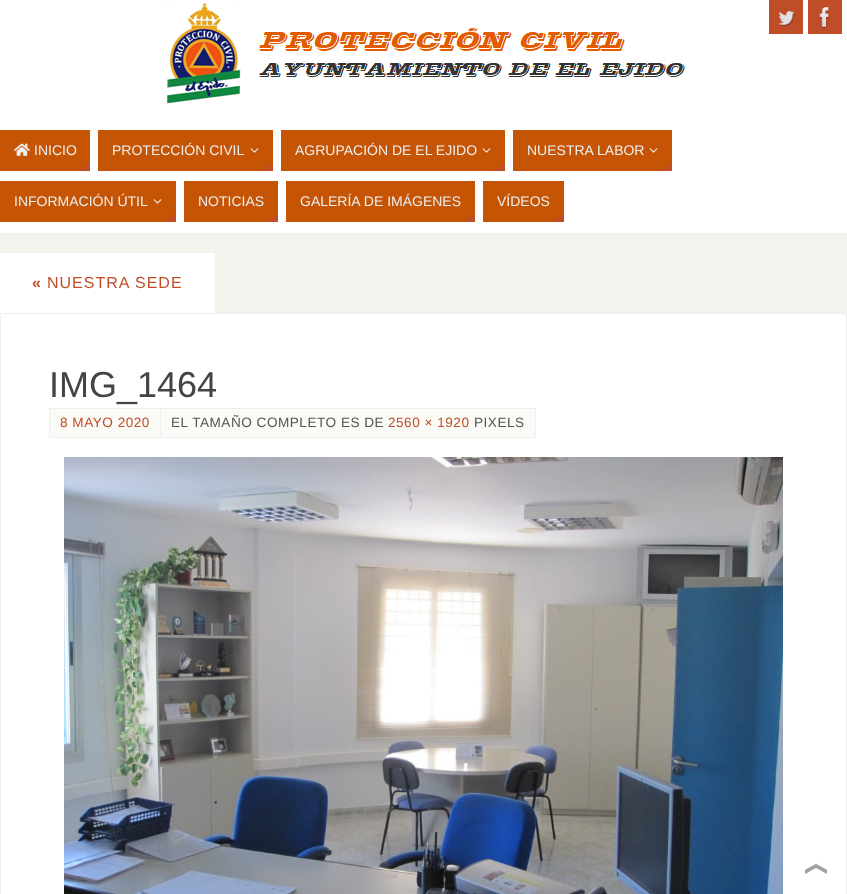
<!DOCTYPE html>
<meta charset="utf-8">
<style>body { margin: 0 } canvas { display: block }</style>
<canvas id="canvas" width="847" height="894"></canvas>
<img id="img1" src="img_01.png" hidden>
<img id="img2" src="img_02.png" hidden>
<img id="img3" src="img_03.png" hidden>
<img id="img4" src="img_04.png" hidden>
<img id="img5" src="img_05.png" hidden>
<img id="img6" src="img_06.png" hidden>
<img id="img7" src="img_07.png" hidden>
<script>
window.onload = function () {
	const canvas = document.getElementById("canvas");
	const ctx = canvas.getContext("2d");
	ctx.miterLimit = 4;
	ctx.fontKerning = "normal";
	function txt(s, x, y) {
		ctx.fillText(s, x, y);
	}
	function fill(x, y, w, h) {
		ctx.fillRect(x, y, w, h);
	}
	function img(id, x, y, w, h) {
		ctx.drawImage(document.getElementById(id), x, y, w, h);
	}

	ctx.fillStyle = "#F3F3EE";
	fill(0, 0, 847, 894);
	ctx.fillStyle = "#FFFFFF";
	fill(0, 0, 847, 233);
	img("img1", 166, 2, 519, 102);
	ctx.fillStyle = "#BF4D28";
	fill(769, 0, 34, 34);
	img("img2", 778, 11, 18, 15);
	fill(808, 0, 34, 34);
	img("img3", 819, 7, 11, 22);
	ctx.fillStyle = "#C55504";
	fill(0, 130, 90, 41);
	img("img4", 14, 143, 16, 13);
	ctx.fillStyle = "#BF4D28";
	ctx.beginPath();
	ctx.moveTo(90, 171);
	ctx.lineTo(78, 171);
	ctx.lineTo(90, 163);
	ctx.closePath();
	ctx.fill();
	ctx.fillStyle = "#C55504";
	fill(98, 130, 175, 41);
	img("img5", 250, 148, 9, 5);
	ctx.fillStyle = "#BF4D28";
	ctx.beginPath();
	ctx.moveTo(273, 171);
	ctx.lineTo(261, 171);
	ctx.lineTo(273, 163);
	ctx.closePath();
	ctx.fill();
	ctx.fillStyle = "#C55504";
	fill(281, 130, 224, 41);
	img("img5", 482, 148, 9, 5);
	ctx.fillStyle = "#BF4D28";
	ctx.beginPath();
	ctx.moveTo(505, 171);
	ctx.lineTo(493, 171);
	ctx.lineTo(505, 163);
	ctx.closePath();
	ctx.fill();
	ctx.fillStyle = "#C55504";
	fill(513, 130, 159, 41);
	img("img5", 649, 148, 9, 5);
	ctx.fillStyle = "#BF4D28";
	ctx.beginPath();
	ctx.moveTo(672, 171);
	ctx.lineTo(660, 171);
	ctx.lineTo(672, 163);
	ctx.closePath();
	ctx.fill();
	ctx.fillStyle = "#C55504";
	fill(0, 181, 176, 41);
	img("img5", 153, 199, 9, 5);
	ctx.fillStyle = "#BF4D28";
	ctx.beginPath();
	ctx.moveTo(176, 222);
	ctx.lineTo(164, 222);
	ctx.lineTo(176, 214);
	ctx.closePath();
	ctx.fill();
	ctx.fillStyle = "#C55504";
	fill(184, 181, 94, 41);
	ctx.fillStyle = "#BF4D28";
	ctx.beginPath();
	ctx.moveTo(278, 222);
	ctx.lineTo(266, 222);
	ctx.lineTo(278, 214);
	ctx.closePath();
	ctx.fill();
	ctx.fillStyle = "#C55504";
	fill(286, 181, 189, 41);
	ctx.fillStyle = "#BF4D28";
	ctx.beginPath();
	ctx.moveTo(475, 222);
	ctx.lineTo(463, 222);
	ctx.lineTo(475, 214);
	ctx.closePath();
	ctx.fill();
	ctx.fillStyle = "#C55504";
	fill(483, 181, 81, 41);
	ctx.fillStyle = "#BF4D28";
	ctx.beginPath();
	ctx.moveTo(564, 222);
	ctx.lineTo(552, 222);
	ctx.lineTo(564, 214);
	ctx.closePath();
	ctx.fill();
	ctx.fillStyle = "#FFFFFF";
	fill(0, 253, 215, 60);
	ctx.beginPath();
	ctx.rect(0.5, 313.5, 846, 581);
	ctx.fill();
	ctx.strokeStyle = "#EEEEEE";
	ctx.stroke();
	ctx.fillStyle = "#FAFAF7";
	ctx.beginPath();
	ctx.rect(49.5, 408.5, 111, 29);
	ctx.fill();
	ctx.stroke();
	ctx.beginPath();
	ctx.rect(160.5, 408.5, 375, 29);
	ctx.fill();
	ctx.stroke();
	img("img6", 64, 457, 719, 437);
	img("img7", 805, 863, 22, 11);
	ctx.font = "14px Liberation Sans";
	ctx.fillStyle = "#EEEEEE";
	txt("INICIO", 34, 155);
	txt("PROTECCIÓN CIVIL", 112, 155);
	txt("AGRUPACIÓN DE EL EJIDO", 295, 155);
	txt("NUESTRA LABOR", 527, 155);
	txt("INFORMACIÓN ÚTIL", 14, 206);
	txt("NOTICIAS", 198, 206);
	txt("GALERÍA DE IMÁGENES", 300, 206);
	txt("VÍDEOS", 497, 206);
	ctx.letterSpacing = "1px";
	ctx.font = "bold 16px Liberation Sans";
	ctx.fillStyle = "#BF4D28";
	txt("«", 32, 288);
	ctx.font = "16px Liberation Sans";
	txt("NUESTRA SEDE", 47, 288);
	ctx.letterSpacing = "0px";
	ctx.font = "36px Liberation Sans";
	ctx.fillStyle = "#444444";
	txt("IMG_1464", 49, 397);
	ctx.letterSpacing = "0.5px";
	ctx.font = "13.6px Liberation Sans";
	ctx.fillStyle = "#BF4D28";
	txt("8 MAYO 2020", 60, 427);
	ctx.fillStyle = "#555555";
	txt("EL TAMAÑO COMPLETO ES DE", 171, 427);
	ctx.fillStyle = "#BF4D28";
	txt("2560 × 1920", 388, 427);
	ctx.fillStyle = "#555555";
	txt("PIXELS", 474, 427);
};
</script>
